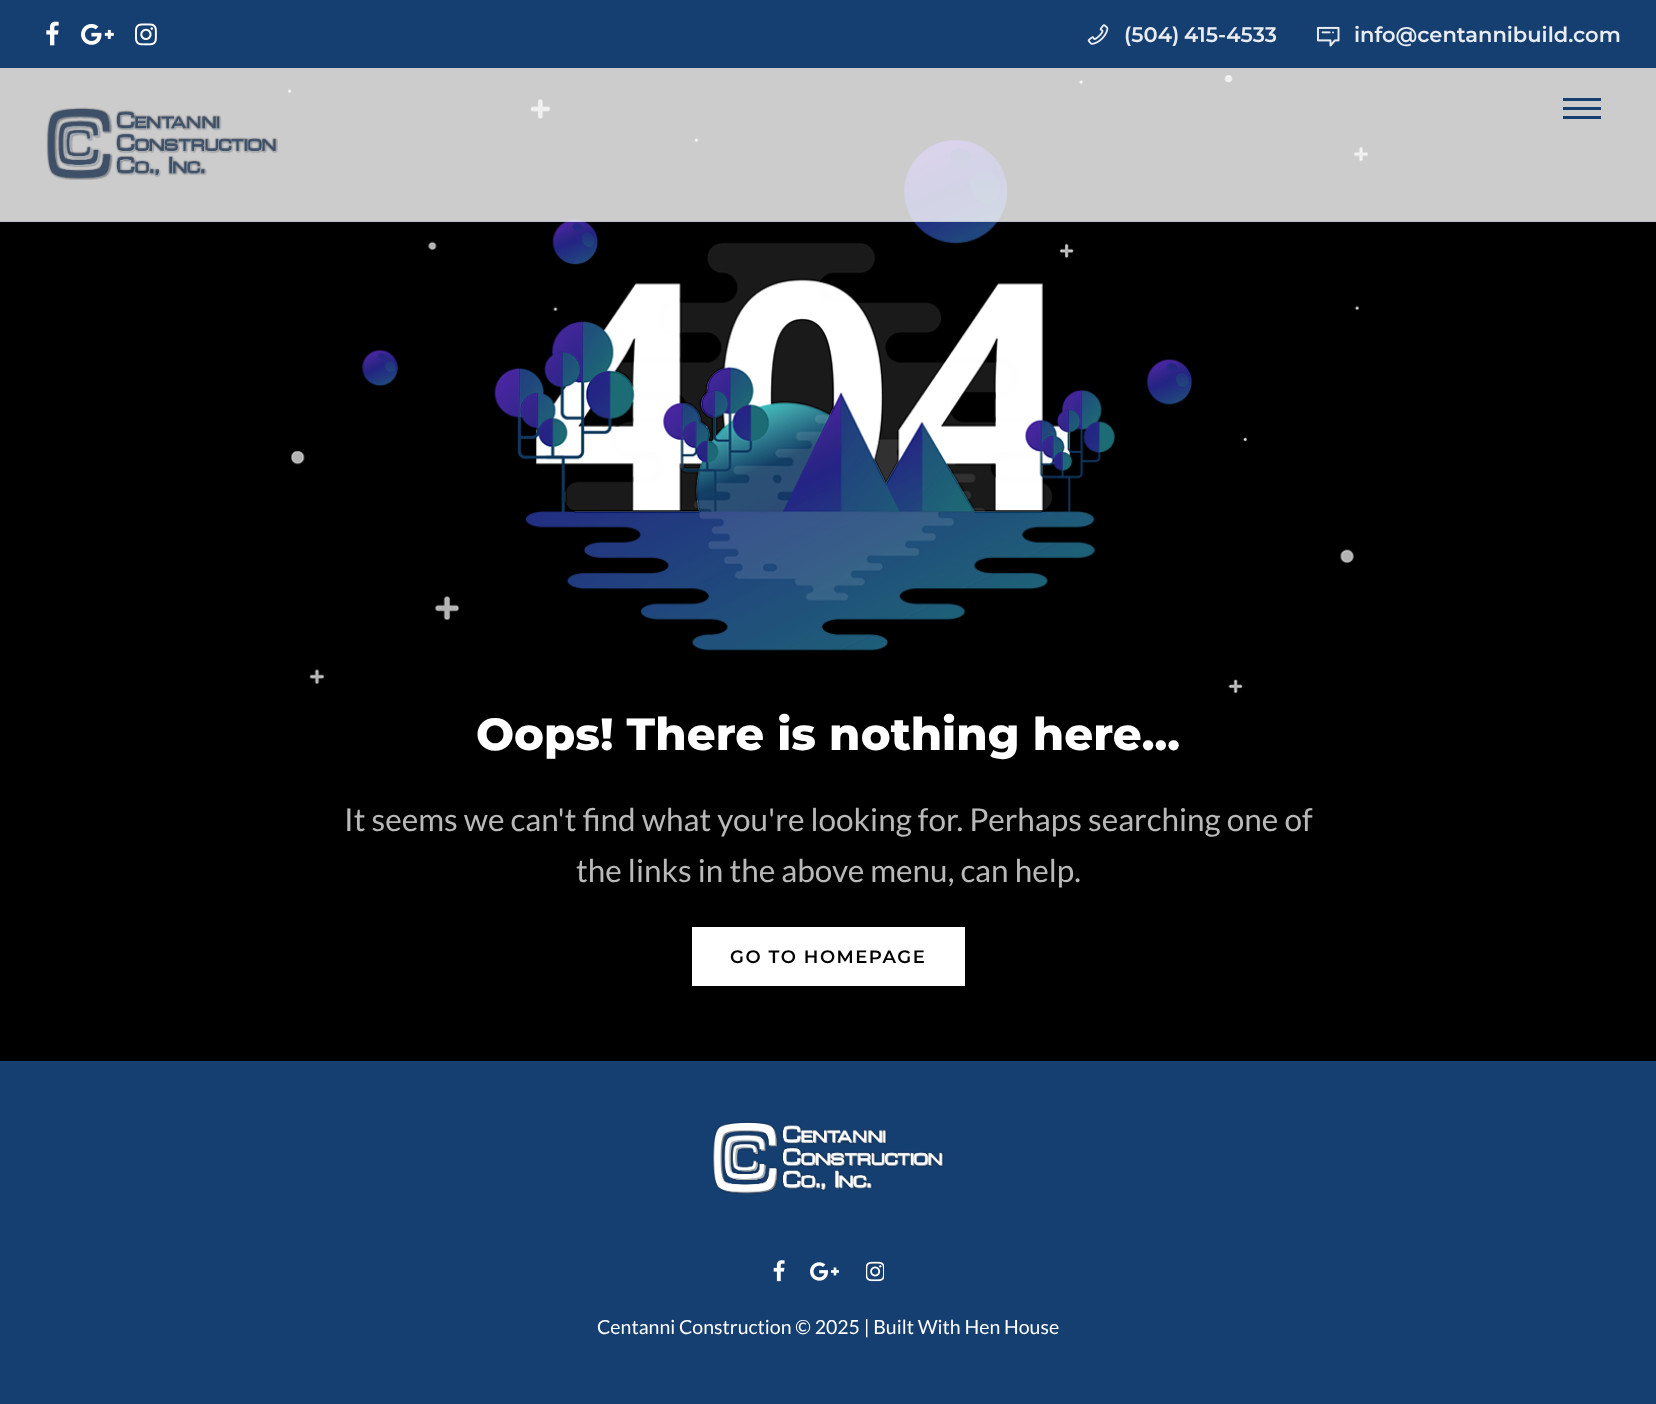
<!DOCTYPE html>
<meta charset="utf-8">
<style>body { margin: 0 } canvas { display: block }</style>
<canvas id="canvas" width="1656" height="1404"></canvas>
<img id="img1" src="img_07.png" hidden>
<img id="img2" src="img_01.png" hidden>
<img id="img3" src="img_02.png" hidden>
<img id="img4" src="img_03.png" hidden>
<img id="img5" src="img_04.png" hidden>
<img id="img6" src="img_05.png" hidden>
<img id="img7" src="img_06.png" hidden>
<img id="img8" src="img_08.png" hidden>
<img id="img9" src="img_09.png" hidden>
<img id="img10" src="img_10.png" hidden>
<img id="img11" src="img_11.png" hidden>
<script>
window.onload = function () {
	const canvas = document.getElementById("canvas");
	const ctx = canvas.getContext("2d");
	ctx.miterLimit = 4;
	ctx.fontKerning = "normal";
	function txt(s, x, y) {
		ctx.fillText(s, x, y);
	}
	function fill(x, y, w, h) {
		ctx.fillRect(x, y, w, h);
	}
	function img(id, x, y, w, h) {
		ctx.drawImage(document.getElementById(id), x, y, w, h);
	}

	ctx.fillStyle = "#163F71";
	fill(0, 0, 1656, 1404);
	ctx.fillStyle = "#000000";
	fill(0, 68, 1656, 993);
	img("img1", 288, 75, 1080, 618);
	ctx.fillStyle = "rgba(255, 255, 255, 0.8)";
	fill(0, 68, 1656, 154);
	ctx.fillStyle = "rgba(22, 63, 113, 0.1)";
	fill(0, 221, 1656, 2);
	img("img2", 46, 21, 13, 25);
	img("img3", 81, 24, 33, 21);
	img("img4", 135, 23, 22, 23);
	img("img5", 1087, 24, 22, 21);
	img("img6", 1317, 26, 23, 21);
	img("img7", 46, 107, 232, 73);
	ctx.fillStyle = "#163F71";
	fill(1563, 107, 38, 3);
	fill(1563, 98, 38, 3);
	fill(1563, 116, 38, 3);
	ctx.fillStyle = "#FFFFFF";
	fill(692, 927, 273, 59);
	img("img8", 712, 1121, 232, 73);
	img("img9", 773, 1260, 12, 22);
	img("img10", 810, 1262, 29, 19);
	img("img11", 866, 1261, 18, 21);
	ctx.wordSpacing = "-1px";
	ctx.font = "600 21px Montserrat";
	ctx.fillStyle = "#E8ECF1";
	txt("(504) 415-4533", 1124, 42);
	ctx.wordSpacing = "0px";
	txt("info@centannibuild.com", 1354, 42);
	ctx.font = "800 45px Montserrat";
	ctx.fillStyle = "#FFFFFF";
	txt("Oops! There is nothing here...", 476, 750);
	ctx.font = "31.5px Lato";
	ctx.fillStyle = "#B9B9B9";
	txt("It seems we can't find what you're looking for. Perhaps searching one of", 344, 831);
	txt("the links in the above menu, can help.", 576, 882);
	ctx.letterSpacing = "1.5px";
	ctx.font = "600 18px Montserrat";
	ctx.fillStyle = "#000000";
	txt("GO TO HOMEPAGE", 730, 963);
	ctx.letterSpacing = "0px";
	ctx.font = "19.5px Lato";
	ctx.fillStyle = "#FFFFFF";
	txt("Centanni Construction © 2025 | Built With Hen House", 597, 1334);
};
</script>
